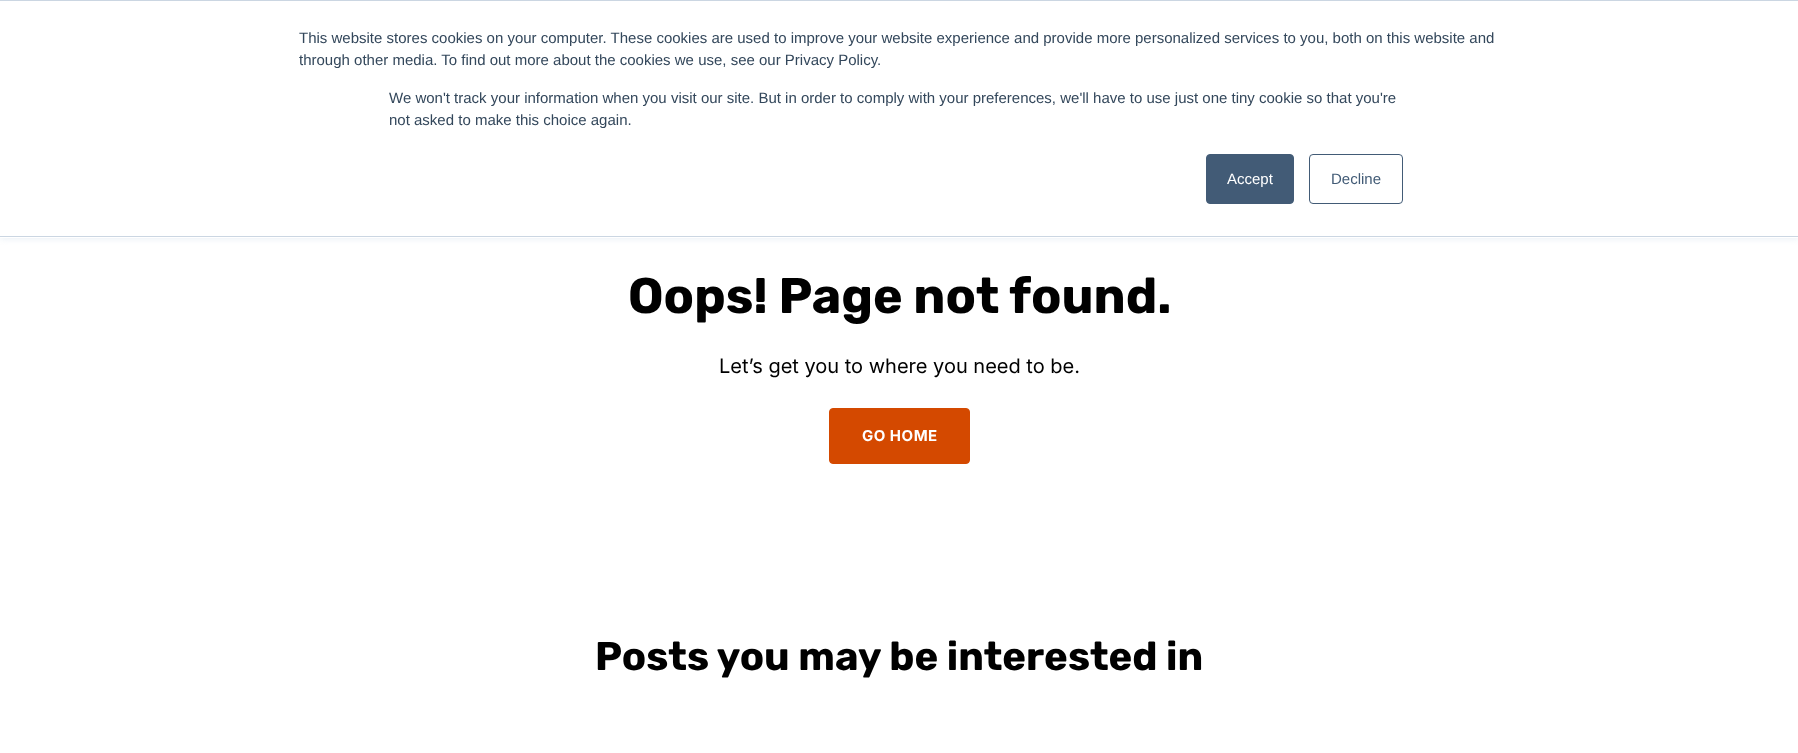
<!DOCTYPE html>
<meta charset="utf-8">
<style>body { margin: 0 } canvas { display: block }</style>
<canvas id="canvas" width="1798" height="753"></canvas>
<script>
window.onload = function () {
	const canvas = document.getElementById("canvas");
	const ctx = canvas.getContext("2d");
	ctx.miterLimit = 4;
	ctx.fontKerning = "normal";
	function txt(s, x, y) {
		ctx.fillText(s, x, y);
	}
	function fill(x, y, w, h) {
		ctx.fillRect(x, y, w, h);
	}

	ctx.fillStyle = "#FFFFFF";
	fill(0, 0, 1798, 753);
	ctx.fillStyle = "#EAF0F6";
	ctx.filter = "blur(3px)";
	ctx.beginPath();
	ctx.rect(0, 1, 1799, 238);
	ctx.fill();
	ctx.filter = "none";
	ctx.fillStyle = "#FFFFFF";
	fill(0, 1, 1798, 237);
	ctx.fillStyle = "#CBD6E2";
	fill(0, 0, 1798, 1);
	fill(0, 236, 1798, 1);
	ctx.fillStyle = "#425B76";
	ctx.beginPath();
	ctx.roundRect(1206.5, 154.5, 87, 49, 3.5);
	ctx.fill();
	ctx.strokeStyle = "#425B76";
	ctx.stroke();
	ctx.beginPath();
	ctx.roundRect(1309.5, 154.5, 93, 49, 3.5);
	ctx.stroke();
	ctx.fillStyle = "#D44900";
	ctx.beginPath();
	ctx.roundRect(829.5, 408.5, 140, 55, 3.5);
	ctx.fill();
	ctx.strokeStyle = "#D44900";
	ctx.stroke();
	ctx.font = "15px Liberation Sans";
	ctx.fillStyle = "#33475B";
	txt("This website stores cookies on your computer. These cookies are used to improve your website experience and provide more personalized services to you, both on this website and", 299, 43);
	txt("through other media. To find out more about the cookies we use, see our Privacy Policy.", 299, 65);
	txt("We won't track your information when you visit our site. But in order to comply with your preferences, we'll have to use just one tiny cookie so that you're", 389, 103);
	txt("not asked to make this choice again.", 389, 125);
	ctx.fillStyle = "#FFFFFF";
	txt("Accept", 1227, 184);
	ctx.fillStyle = "#425B76";
	txt("Decline", 1331, 184);
	ctx.font = "bold 50px Rubik";
	ctx.fillStyle = "#000000";
	txt("Oops! Page not found.", 628, 313);
	ctx.font = "20px Inter";
	txt("Let’s get you to where you need to be.", 719, 373);
	ctx.letterSpacing = "0.5px";
	ctx.font = "bold 15px Inter";
	ctx.fillStyle = "#FFFFFF";
	txt("GO HOME", 862, 441);
	ctx.letterSpacing = "0px";
	ctx.font = "bold 40px Rubik";
	ctx.fillStyle = "#000000";
	txt("Posts you may be interested in", 595, 670);
};
</script>
